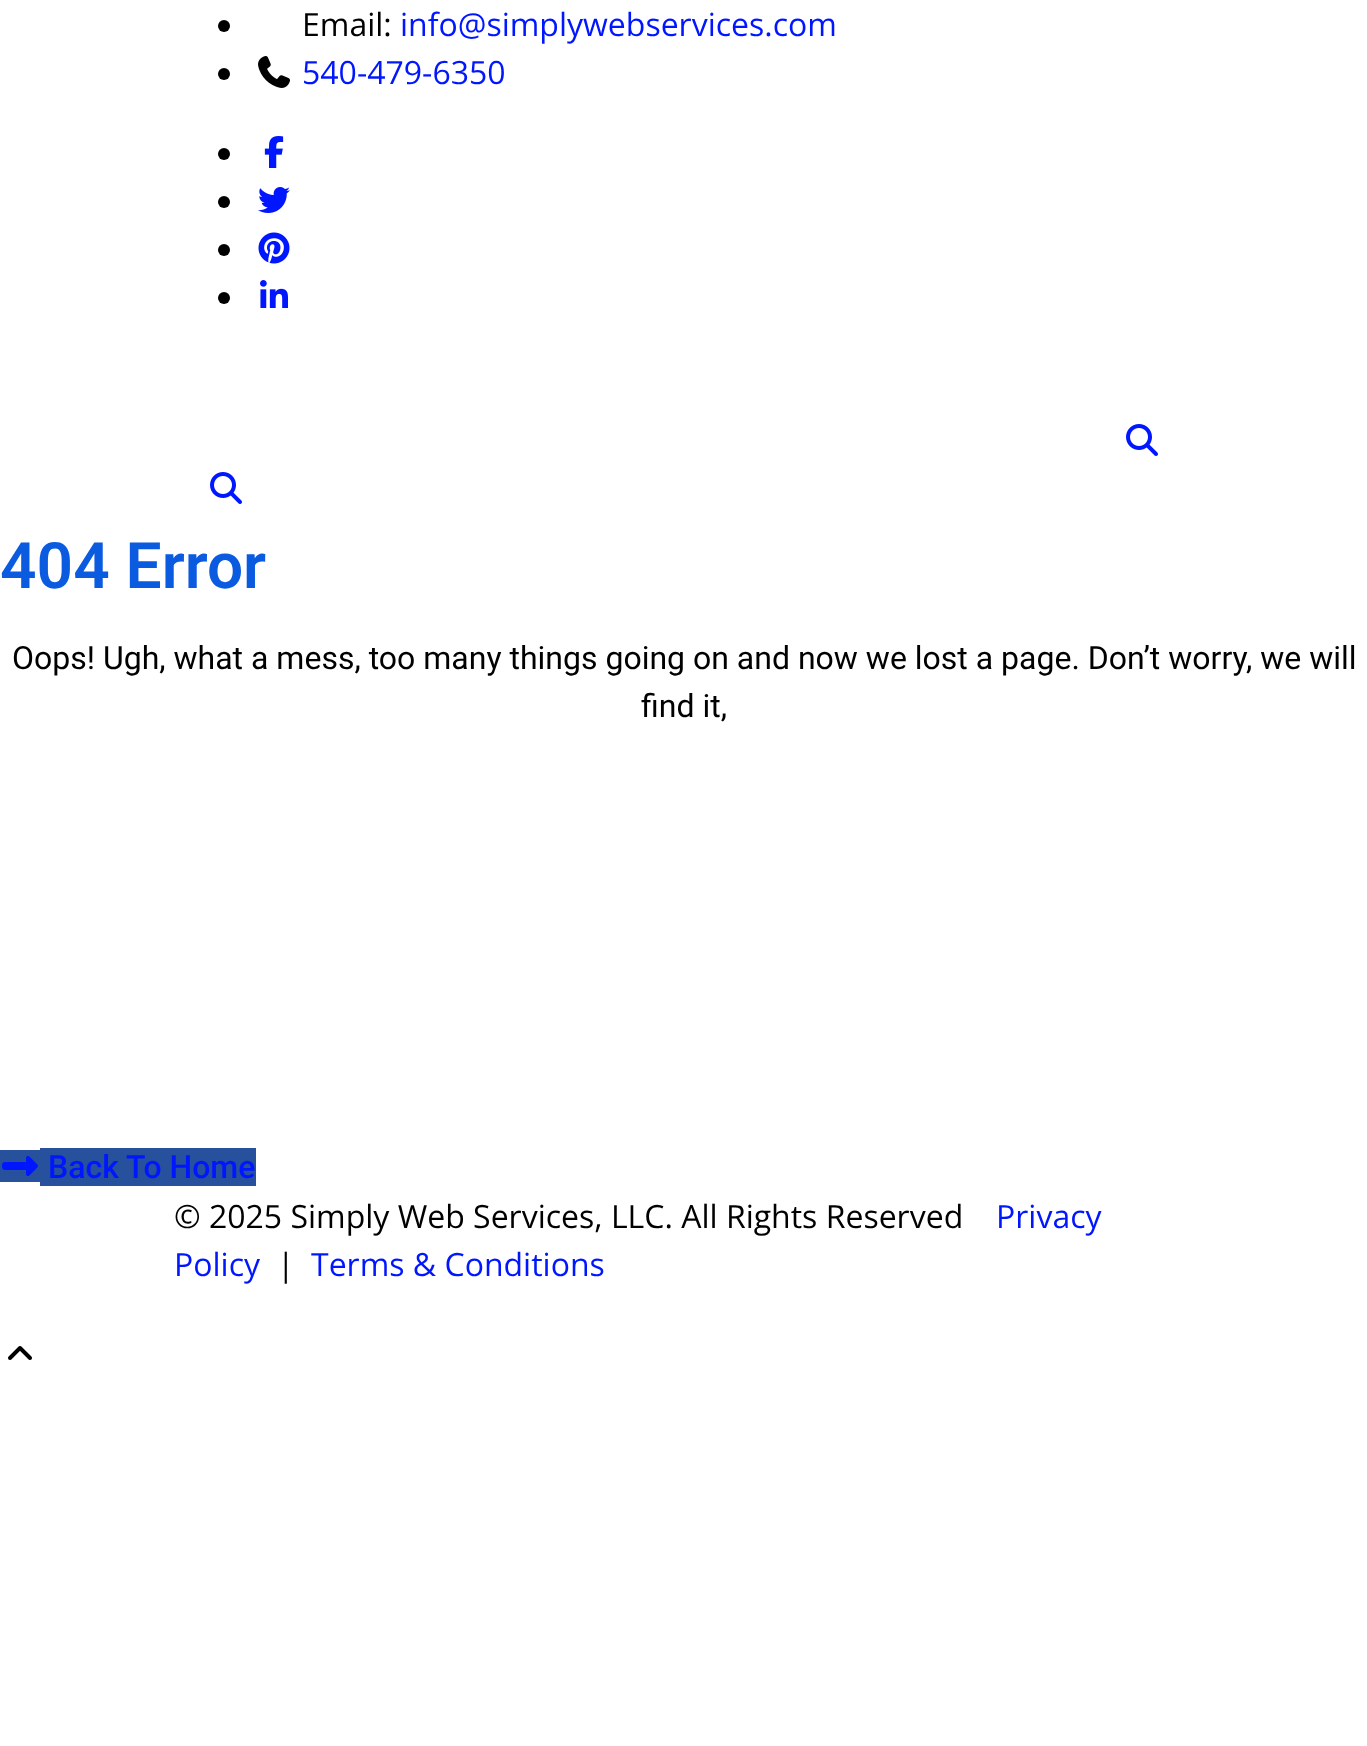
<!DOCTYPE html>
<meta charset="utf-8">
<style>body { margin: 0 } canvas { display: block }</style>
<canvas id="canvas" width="1367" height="1746"></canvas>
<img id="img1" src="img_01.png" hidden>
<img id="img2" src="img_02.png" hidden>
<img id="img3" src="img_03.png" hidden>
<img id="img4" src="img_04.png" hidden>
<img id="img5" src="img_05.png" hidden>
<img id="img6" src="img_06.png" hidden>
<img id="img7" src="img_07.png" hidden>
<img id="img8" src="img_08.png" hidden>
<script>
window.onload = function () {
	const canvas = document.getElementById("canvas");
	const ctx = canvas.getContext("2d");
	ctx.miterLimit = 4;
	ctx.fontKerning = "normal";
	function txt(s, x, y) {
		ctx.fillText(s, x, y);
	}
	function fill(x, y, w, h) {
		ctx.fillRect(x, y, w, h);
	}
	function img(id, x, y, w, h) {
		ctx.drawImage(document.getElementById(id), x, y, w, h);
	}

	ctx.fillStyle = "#FFFFFF";
	fill(0, 0, 1367, 1746);
	ctx.fillStyle = "#000000";
	ctx.beginPath();
	ctx.arc(224, 26, 6, 0, Math.PI * 2);
	ctx.fill();
	ctx.beginPath();
	ctx.arc(224, 74, 6, 0, Math.PI * 2);
	ctx.fill();
	img("img1", 258, 56, 32, 32);
	ctx.beginPath();
	ctx.arc(224, 154, 6, 0, Math.PI * 2);
	ctx.fill();
	img("img2", 264, 136, 20, 32);
	ctx.beginPath();
	ctx.arc(224, 202, 6, 0, Math.PI * 2);
	ctx.fill();
	img("img3", 258, 187, 32, 26);
	ctx.beginPath();
	ctx.arc(224, 250, 6, 0, Math.PI * 2);
	ctx.fill();
	img("img4", 258, 232, 32, 32);
	ctx.beginPath();
	ctx.arc(224, 298, 6, 0, Math.PI * 2);
	ctx.fill();
	img("img5", 260, 280, 28, 28);
	img("img6", 1126, 424, 32, 32);
	img("img6", 210, 472, 32, 32);
	ctx.fillStyle = "#27519D";
	fill(0, 1150, 40, 32);
	fill(40, 1148, 216, 38);
	img("img7", 2, 1156, 36, 20);
	img("img8", 8, 1346, 24, 14);
	ctx.font = "32px Open Sans";
	ctx.fillStyle = "#000000";
	txt("Email:", 302, 36);
	ctx.fillStyle = "#0016FF";
	txt("info@simplywebservices.com", 400, 36);
	txt("540-479-6350", 302, 84);
	ctx.font = "600 64px Roboto";
	ctx.fillStyle = "#0B5BE0";
	txt("404 Error", 0, 588);
	ctx.font = "32px Roboto";
	ctx.fillStyle = "#000000";
	txt("Oops! Ugh, what a mess, too many things going on and now we lost a page. Don’t worry, we will", 12, 669);
	txt("find it,", 641, 717);
	ctx.font = "500 32px Roboto";
	ctx.fillStyle = "#0016FF";
	txt("Back To Home", 48, 1178);
	ctx.font = "32px Open Sans";
	ctx.fillStyle = "#000000";
	txt("© 2025 Simply Web Services, LLC. All Rights Reserved", 174, 1228);
	ctx.fillStyle = "#0016FF";
	txt("Privacy", 996, 1228);
	txt("Policy", 174, 1276);
	ctx.fillStyle = "#000000";
	txt("|", 277, 1276);
	ctx.fillStyle = "#0016FF";
	txt("Terms & Conditions", 311, 1276);
};
</script>
